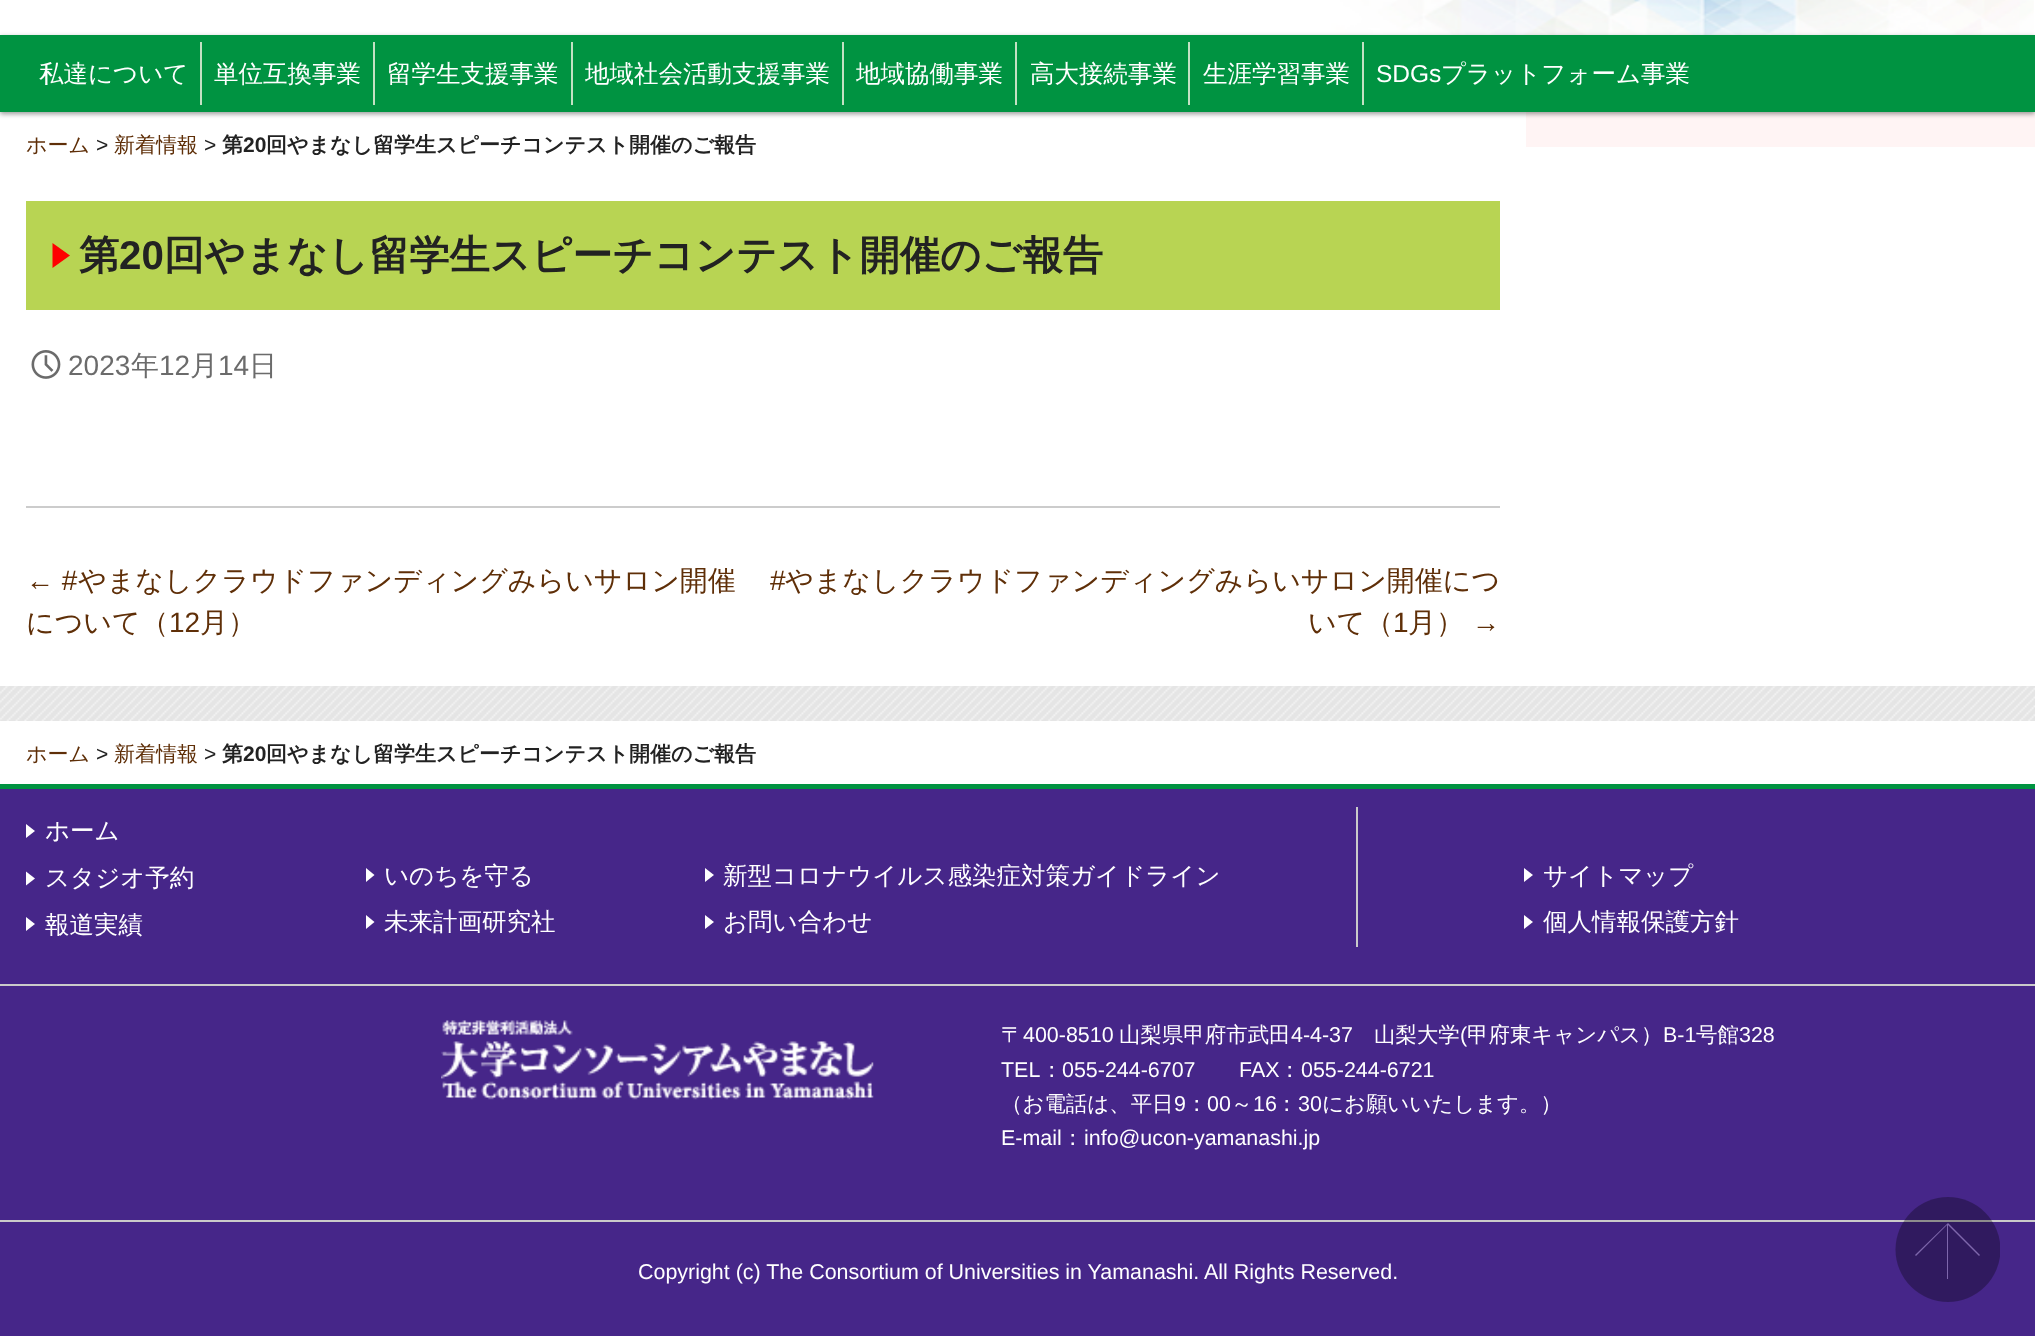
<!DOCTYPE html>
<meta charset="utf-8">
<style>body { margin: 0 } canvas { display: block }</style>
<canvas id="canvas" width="2035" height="1336"></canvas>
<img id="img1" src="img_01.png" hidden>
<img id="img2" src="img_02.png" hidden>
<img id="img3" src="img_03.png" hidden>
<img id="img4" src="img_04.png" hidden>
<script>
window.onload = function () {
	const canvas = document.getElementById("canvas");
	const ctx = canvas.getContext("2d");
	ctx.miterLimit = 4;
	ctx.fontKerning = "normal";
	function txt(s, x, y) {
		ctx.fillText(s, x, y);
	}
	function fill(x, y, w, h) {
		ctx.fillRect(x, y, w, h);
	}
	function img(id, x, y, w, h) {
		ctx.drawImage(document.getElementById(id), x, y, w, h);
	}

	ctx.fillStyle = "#FFFFFF";
	fill(0, 0, 2035, 1336);
	img("img1", 0, 686, 2035, 35);
	img("img2", 1210, 0, 824, 35);
	ctx.fillStyle = "#FFF4F4";
	fill(1526, 112, 509, 35);
	ctx.fillStyle = "rgba(0, 0, 0, 0.4)";
	ctx.filter = "blur(2.5px)";
	ctx.beginPath();
	ctx.rect(0, 37, 2035, 77);
	ctx.fill();
	ctx.filter = "none";
	ctx.fillStyle = "#009341";
	fill(0, 35, 2035, 77);
	ctx.fillStyle = "#C4E1C3";
	fill(200, 42, 2, 63);
	fill(373, 42, 2, 63);
	fill(571, 42, 2, 63);
	fill(842, 42, 2, 63);
	fill(1015, 42, 2, 63);
	fill(1188, 42, 2, 63);
	fill(1362, 42, 2, 63);
	ctx.fillStyle = "#CCCCCC";
	fill(26, 506, 1474, 2);
	ctx.fillStyle = "#B8D453";
	fill(26, 201, 1474, 109);
	ctx.fillStyle = "#FF0000";
	ctx.beginPath();
	ctx.moveTo(52.5, 268);
	ctx.lineTo(52.5, 243);
	ctx.lineTo(70, 255.5);
	ctx.closePath();
	ctx.fill();
	img("img3", 31, 350, 30, 29);
	ctx.fillStyle = "#462689";
	fill(0, 789, 2035, 547);
	ctx.fillStyle = "#009341";
	fill(0, 784, 2035, 5);
	ctx.fillStyle = "#FFFFFF";
	ctx.beginPath();
	ctx.moveTo(26, 838);
	ctx.lineTo(26, 824);
	ctx.lineTo(35, 831);
	ctx.closePath();
	ctx.fill();
	ctx.beginPath();
	ctx.moveTo(26, 885.5);
	ctx.lineTo(26, 871.5);
	ctx.lineTo(35, 878.5);
	ctx.closePath();
	ctx.fill();
	ctx.beginPath();
	ctx.moveTo(26, 931);
	ctx.lineTo(26, 917);
	ctx.lineTo(35, 924);
	ctx.closePath();
	ctx.fill();
	ctx.beginPath();
	ctx.moveTo(366, 882);
	ctx.lineTo(366, 868);
	ctx.lineTo(374.5, 875);
	ctx.closePath();
	ctx.fill();
	ctx.beginPath();
	ctx.moveTo(366, 929);
	ctx.lineTo(366, 915);
	ctx.lineTo(374.5, 922);
	ctx.closePath();
	ctx.fill();
	ctx.beginPath();
	ctx.moveTo(705, 882);
	ctx.lineTo(705, 868);
	ctx.lineTo(714, 875);
	ctx.closePath();
	ctx.fill();
	ctx.beginPath();
	ctx.moveTo(705, 929);
	ctx.lineTo(705, 915);
	ctx.lineTo(714, 922);
	ctx.closePath();
	ctx.fill();
	ctx.fillStyle = "#CACACA";
	fill(1356, 807, 2, 140);
	ctx.fillStyle = "#FFFFFF";
	ctx.beginPath();
	ctx.moveTo(1524, 882);
	ctx.lineTo(1524, 868);
	ctx.lineTo(1533, 875);
	ctx.closePath();
	ctx.fill();
	ctx.beginPath();
	ctx.moveTo(1524, 929);
	ctx.lineTo(1524, 915);
	ctx.lineTo(1533, 922);
	ctx.closePath();
	ctx.fill();
	ctx.fillStyle = "#CACACA";
	fill(0, 984, 2035, 2);
	img("img4", 441, 1020, 433, 80);
	fill(0, 1220, 2035, 2);
	ctx.save();
	ctx.beginPath();
	ctx.rect(1895, 1197, 105, 105);
	ctx.clip();
	ctx.fillStyle = "rgba(0, 0, 0, 0.3)";
	ctx.beginPath();
	ctx.arc(1948, 1249.5, 52.5, 0, Math.PI * 2);
	ctx.fill();
	ctx.restore();
	ctx.fillStyle = "#7E67AC";
	ctx.beginPath();
	ctx.moveTo(1948, 1223);
	ctx.lineTo(1915, 1255);
	ctx.lineTo(1916, 1256);
	ctx.lineTo(1947, 1225);
	ctx.lineTo(1947, 1279);
	ctx.lineTo(1948, 1279);
	ctx.lineTo(1948, 1225);
	ctx.lineTo(1979, 1256);
	ctx.lineTo(1980, 1255);
	ctx.closePath();
	ctx.fill();
	ctx.font = "500 24.5px WenQuanYi Zen Hei";
	ctx.fillStyle = "#FFFFFF";
	txt("私達について", 39, 82);
	txt("単位互換事業", 214, 82);
	txt("留学生支援事業", 387, 82);
	txt("地域社会活動支援事業", 585, 82);
	txt("地域協働事業", 856, 82);
	txt("高大接続事業", 1030, 82);
	txt("生涯学習事業", 1203, 82);
	ctx.font = "24.5px Liberation Sans";
	txt("SDGs", 1376, 82);
	ctx.font = "500 24.5px WenQuanYi Zen Hei";
	txt("プラットフォーム事業", 1441, 82);
	ctx.font = "500 21px WenQuanYi Zen Hei";
	ctx.fillStyle = "#5F2F08";
	txt("ホーム", 26, 152);
	ctx.font = "21px Liberation Sans";
	ctx.fillStyle = "#222222";
	txt(">", 96, 152);
	ctx.font = "500 21px WenQuanYi Zen Hei";
	ctx.fillStyle = "#5F2F08";
	txt("新着情報", 114, 152);
	ctx.font = "21px Liberation Sans";
	ctx.fillStyle = "#222222";
	txt(">", 204, 152);
	ctx.font = "bold 21px WenQuanYi Zen Hei";
	txt("第", 222, 152);
	ctx.font = "bold 21px Liberation Sans";
	txt("20", 243, 152);
	ctx.font = "bold 21px WenQuanYi Zen Hei";
	txt("回やまなし留学生スピーチコンテスト開催のご報告", 266, 152);
	ctx.font = "bold 40.25px WenQuanYi Zen Hei";
	txt("第", 79, 269);
	ctx.font = "bold 40.25px Liberation Sans";
	txt("20", 119, 269);
	ctx.font = "bold 40.25px WenQuanYi Zen Hei";
	txt("回やまなし留学生スピーチコンテスト開催のご報告", 164, 269);
	ctx.font = "28px Liberation Sans";
	ctx.fillStyle = "#6B6B6B";
	txt("2023", 68, 375);
	ctx.font = "500 28px WenQuanYi Zen Hei";
	txt("年", 131, 375);
	ctx.font = "28px Liberation Sans";
	txt("12", 159, 375);
	ctx.font = "500 28px WenQuanYi Zen Hei";
	txt("月", 190, 375);
	ctx.font = "28px Liberation Sans";
	txt("14", 218, 375);
	ctx.font = "500 28px WenQuanYi Zen Hei";
	txt("日", 249, 375);
	ctx.font = "28px Liberation Sans";
	ctx.fillStyle = "#5F2F08";
	txt("← #", 26, 590);
	ctx.font = "500 28px WenQuanYi Zen Hei";
	txt("やまなしクラウドファンディングみらいサロン開催", 78, 590);
	txt("について（", 26, 632);
	ctx.font = "28px Liberation Sans";
	txt("12", 169, 632);
	ctx.font = "500 28px WenQuanYi Zen Hei";
	txt("月）", 200, 632);
	ctx.font = "28px Liberation Sans";
	txt("#", 770, 590);
	ctx.font = "500 28px WenQuanYi Zen Hei";
	txt("やまなしクラウドファンディングみらいサロン開催につ", 785, 590);
	txt("いて（", 1308, 632);
	ctx.font = "28px Liberation Sans";
	txt("1", 1393, 632);
	ctx.font = "500 28px WenQuanYi Zen Hei";
	txt("月）", 1408, 632);
	ctx.font = "28px Liberation Sans";
	txt("→", 1472, 632);
	ctx.font = "500 21px WenQuanYi Zen Hei";
	txt("ホーム", 26, 761);
	ctx.font = "21px Liberation Sans";
	ctx.fillStyle = "#222222";
	txt(">", 96, 761);
	ctx.font = "500 21px WenQuanYi Zen Hei";
	ctx.fillStyle = "#5F2F08";
	txt("新着情報", 114, 761);
	ctx.font = "21px Liberation Sans";
	ctx.fillStyle = "#222222";
	txt(">", 204, 761);
	ctx.font = "bold 21px WenQuanYi Zen Hei";
	txt("第", 222, 761);
	ctx.font = "bold 21px Liberation Sans";
	txt("20", 243, 761);
	ctx.font = "bold 21px WenQuanYi Zen Hei";
	txt("回やまなし留学生スピーチコンテスト開催のご報告", 266, 761);
	ctx.font = "500 24.5px WenQuanYi Zen Hei";
	ctx.fillStyle = "#FFFFFF";
	txt("ホーム", 45, 839);
	txt("スタジオ予約", 45, 886);
	txt("報道実績", 45, 933);
	txt("いのちを守る", 384, 884);
	txt("未来計画研究社", 384, 930);
	txt("新型コロナウイルス感染症対策ガイドライン", 723, 884);
	txt("お問い合わせ", 723, 930);
	txt("サイトマップ", 1543, 884);
	txt("個人情報保護方針", 1543, 930);
	ctx.font = "500 21.45px WenQuanYi Zen Hei";
	txt("〒", 1001, 1042);
	ctx.font = "21.45px Liberation Sans";
	txt("400-8510", 1023, 1042);
	ctx.font = "500 21.45px WenQuanYi Zen Hei";
	txt("山梨県甲府市武田", 1119, 1042);
	ctx.font = "21.45px Liberation Sans";
	txt("4-4-37", 1291, 1042);
	ctx.font = "500 21.45px WenQuanYi Zen Hei";
	txt("山梨大学", 1374, 1042);
	ctx.font = "21.45px Liberation Sans";
	txt("(", 1460, 1042);
	ctx.font = "500 21.45px WenQuanYi Zen Hei";
	txt("甲府東キャンパス）", 1467, 1042);
	ctx.font = "21.45px Liberation Sans";
	txt("B-1", 1663, 1042);
	ctx.font = "500 21.45px WenQuanYi Zen Hei";
	txt("号館", 1696, 1042);
	ctx.font = "21.45px Liberation Sans";
	txt("328", 1739, 1042);
	txt("TEL", 1001, 1077);
	ctx.font = "500 21.45px WenQuanYi Zen Hei";
	txt("：", 1041, 1077);
	ctx.font = "21.45px Liberation Sans";
	txt("055-244-6707", 1062, 1077);
	txt("FAX", 1239, 1077);
	ctx.font = "500 21.45px WenQuanYi Zen Hei";
	txt("：", 1279, 1077);
	ctx.font = "21.45px Liberation Sans";
	txt("055-244-6721", 1301, 1077);
	ctx.font = "500 21.45px WenQuanYi Zen Hei";
	txt("（お電話は、平日", 1001, 1111);
	ctx.font = "21.45px Liberation Sans";
	txt("9", 1174, 1111);
	ctx.font = "500 21.45px WenQuanYi Zen Hei";
	txt("：", 1186, 1111);
	ctx.font = "21.45px Liberation Sans";
	txt("00", 1207, 1111);
	ctx.font = "500 21.45px WenQuanYi Zen Hei";
	txt("～", 1231, 1111);
	ctx.font = "21.45px Liberation Sans";
	txt("16", 1253, 1111);
	ctx.font = "500 21.45px WenQuanYi Zen Hei";
	txt("：", 1276, 1111);
	ctx.font = "21.45px Liberation Sans";
	txt("30", 1298, 1111);
	ctx.font = "500 21.45px WenQuanYi Zen Hei";
	txt("にお願いいたします。）", 1322, 1111);
	ctx.font = "21.45px Liberation Sans";
	txt("E-mail", 1001, 1145);
	ctx.font = "500 21.45px WenQuanYi Zen Hei";
	txt("：", 1062, 1145);
	ctx.font = "21.45px Liberation Sans";
	txt("info@ucon-yamanashi.jp", 1084, 1145);
	txt("Copyright (c) The Consortium of Universities in Yamanashi. All Rights Reserved.", 638, 1279);
};
</script>
